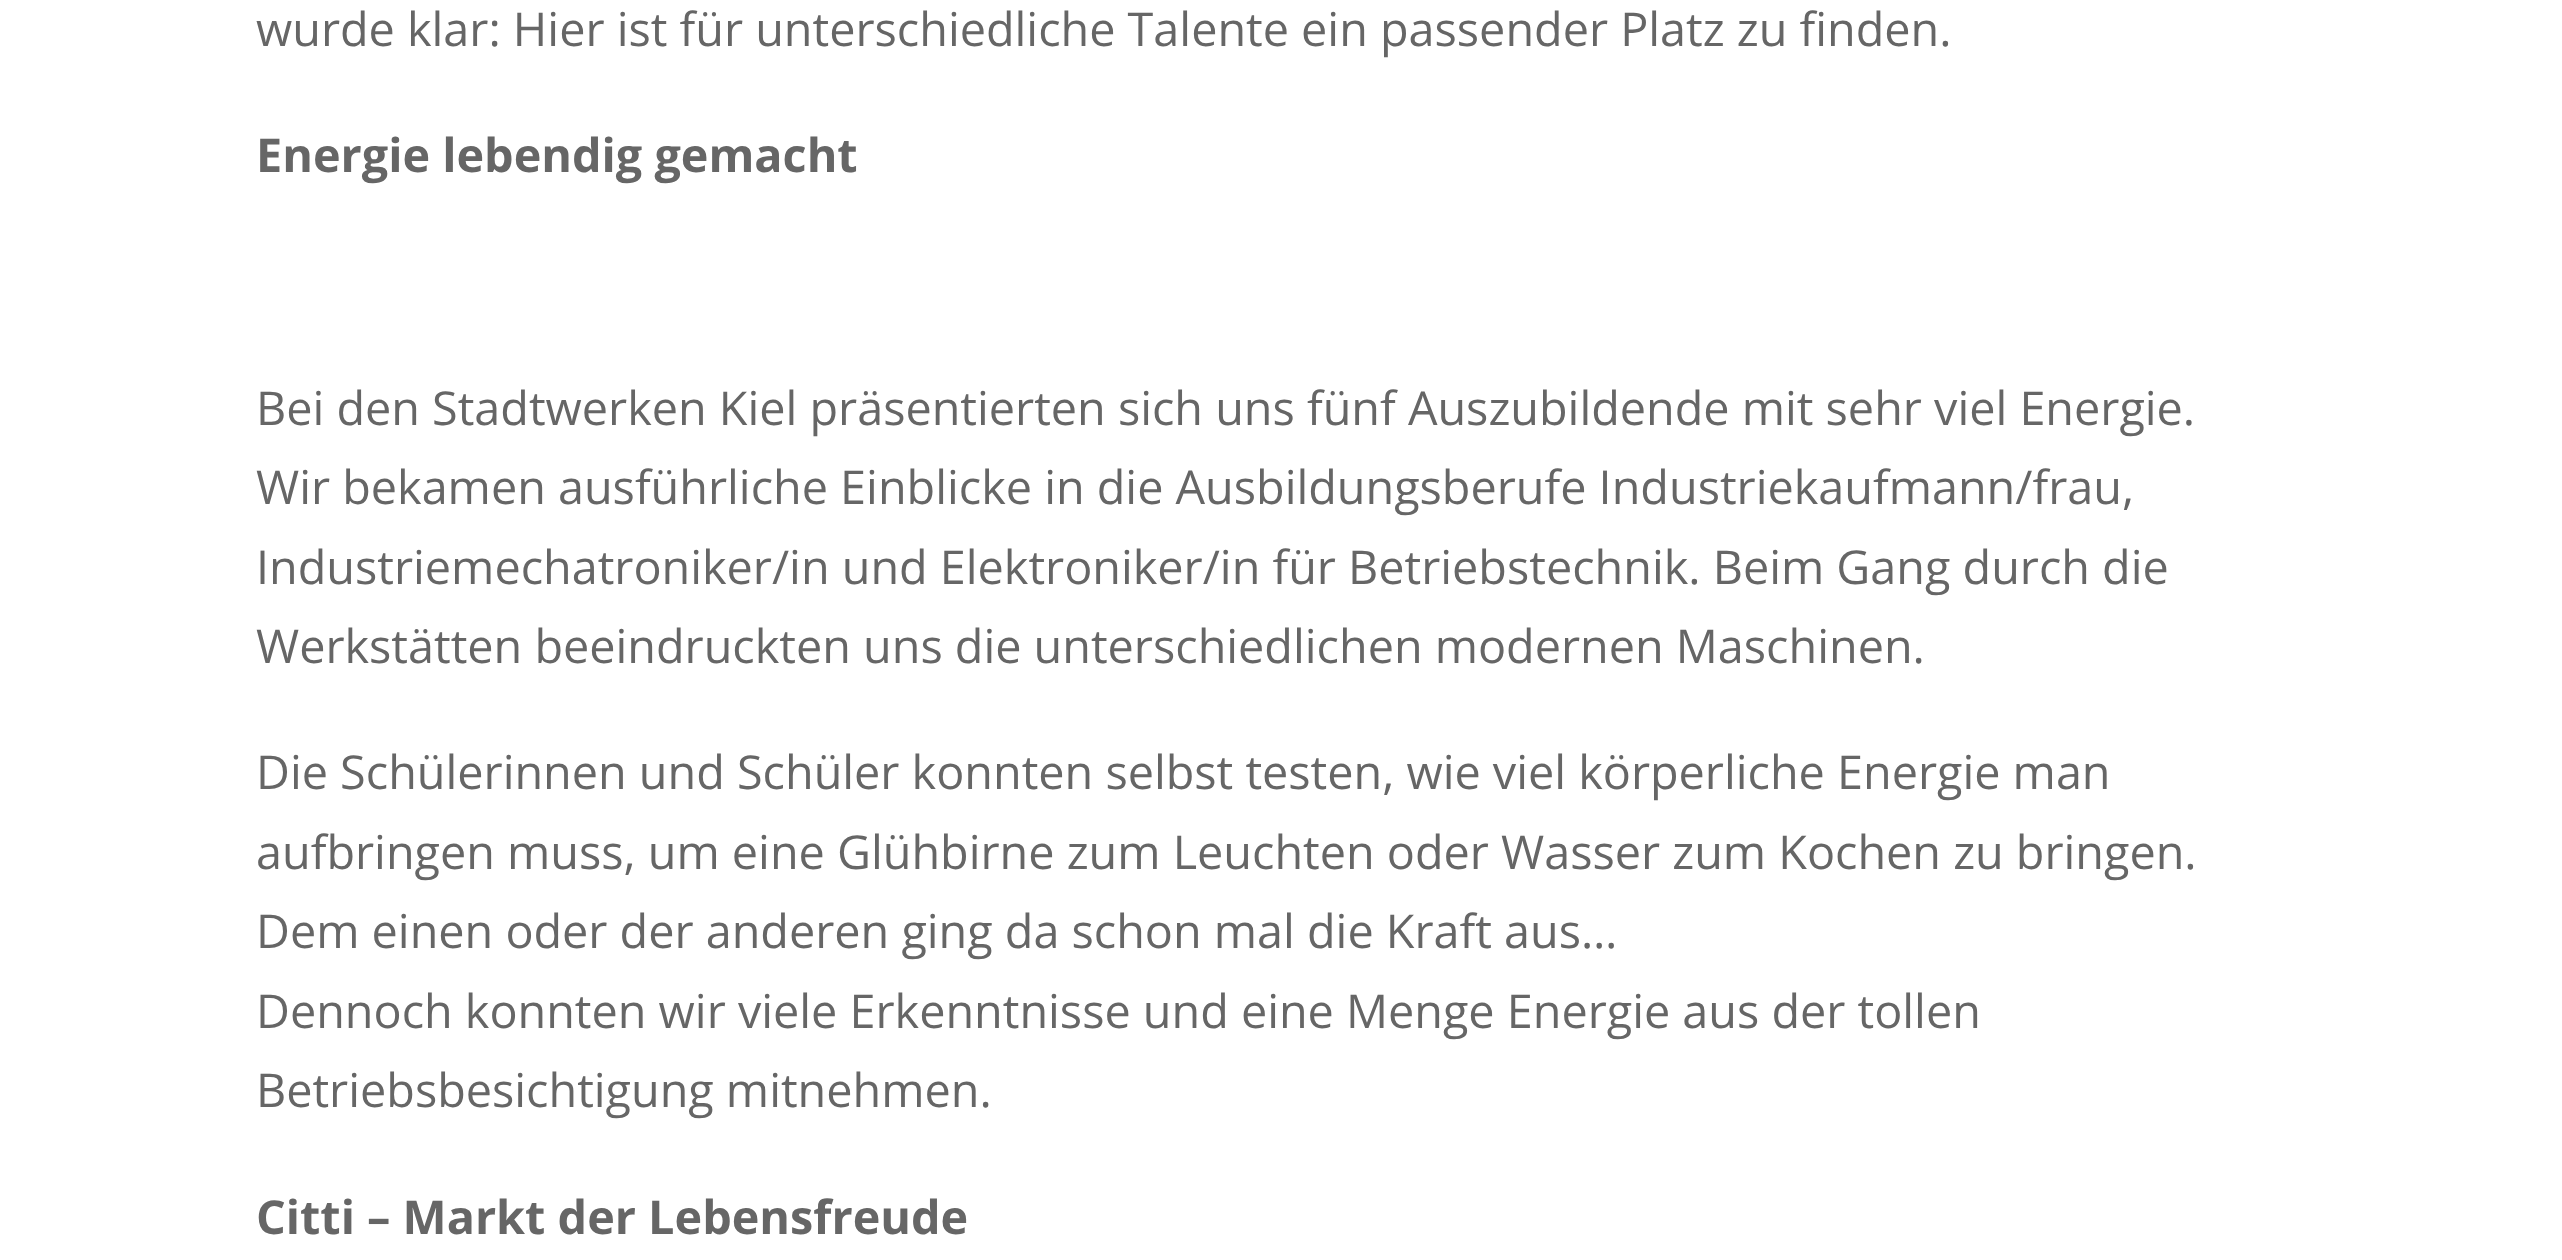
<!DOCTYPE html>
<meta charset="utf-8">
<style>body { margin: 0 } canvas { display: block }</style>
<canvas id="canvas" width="2562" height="1260"></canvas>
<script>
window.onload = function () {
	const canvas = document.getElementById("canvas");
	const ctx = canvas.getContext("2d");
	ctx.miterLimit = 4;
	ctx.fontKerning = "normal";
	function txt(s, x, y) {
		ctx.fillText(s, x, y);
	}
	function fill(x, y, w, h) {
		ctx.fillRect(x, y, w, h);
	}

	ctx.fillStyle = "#FFFFFF";
	fill(0, 0, 2562, 1260);
	ctx.font = "46.75px Open Sans";
	ctx.fillStyle = "#666666";
	txt("wurde klar: Hier ist für unterschiedliche Talente ein passender Platz zu finden.", 256, 46);
	ctx.font = "bold 46.75px Open Sans";
	txt("Energie lebendig gemacht", 256, 172);
	ctx.font = "46.75px Open Sans";
	txt("Bei den Stadtwerken Kiel präsentierten sich uns fünf Auszubildende mit sehr viel Energie.", 256, 425);
	txt("Wir bekamen ausführliche Einblicke in die Ausbildungsberufe Industriekaufmann/frau,", 256, 504);
	txt("Industriemechatroniker/in und Elektroniker/in für Betriebstechnik. Beim Gang durch die", 256, 584);
	txt("Werkstätten beeindruckten uns die unterschiedlichen modernen Maschinen.", 256, 663);
	txt("Die Schülerinnen und Schüler konnten selbst testen, wie viel körperliche Energie man", 256, 789);
	txt("aufbringen muss, um eine Glühbirne zum Leuchten oder Wasser zum Kochen zu bringen.", 256, 869);
	txt("Dem einen oder der anderen ging da schon mal die Kraft aus…", 256, 948);
	txt("Dennoch konnten wir viele Erkenntnisse und eine Menge Energie aus der tollen", 256, 1028);
	txt("Betriebsbesichtigung mitnehmen.", 256, 1107);
	ctx.font = "bold 46.75px Open Sans";
	txt("Citti – Markt der Lebensfreude", 256, 1234);
};
</script>
